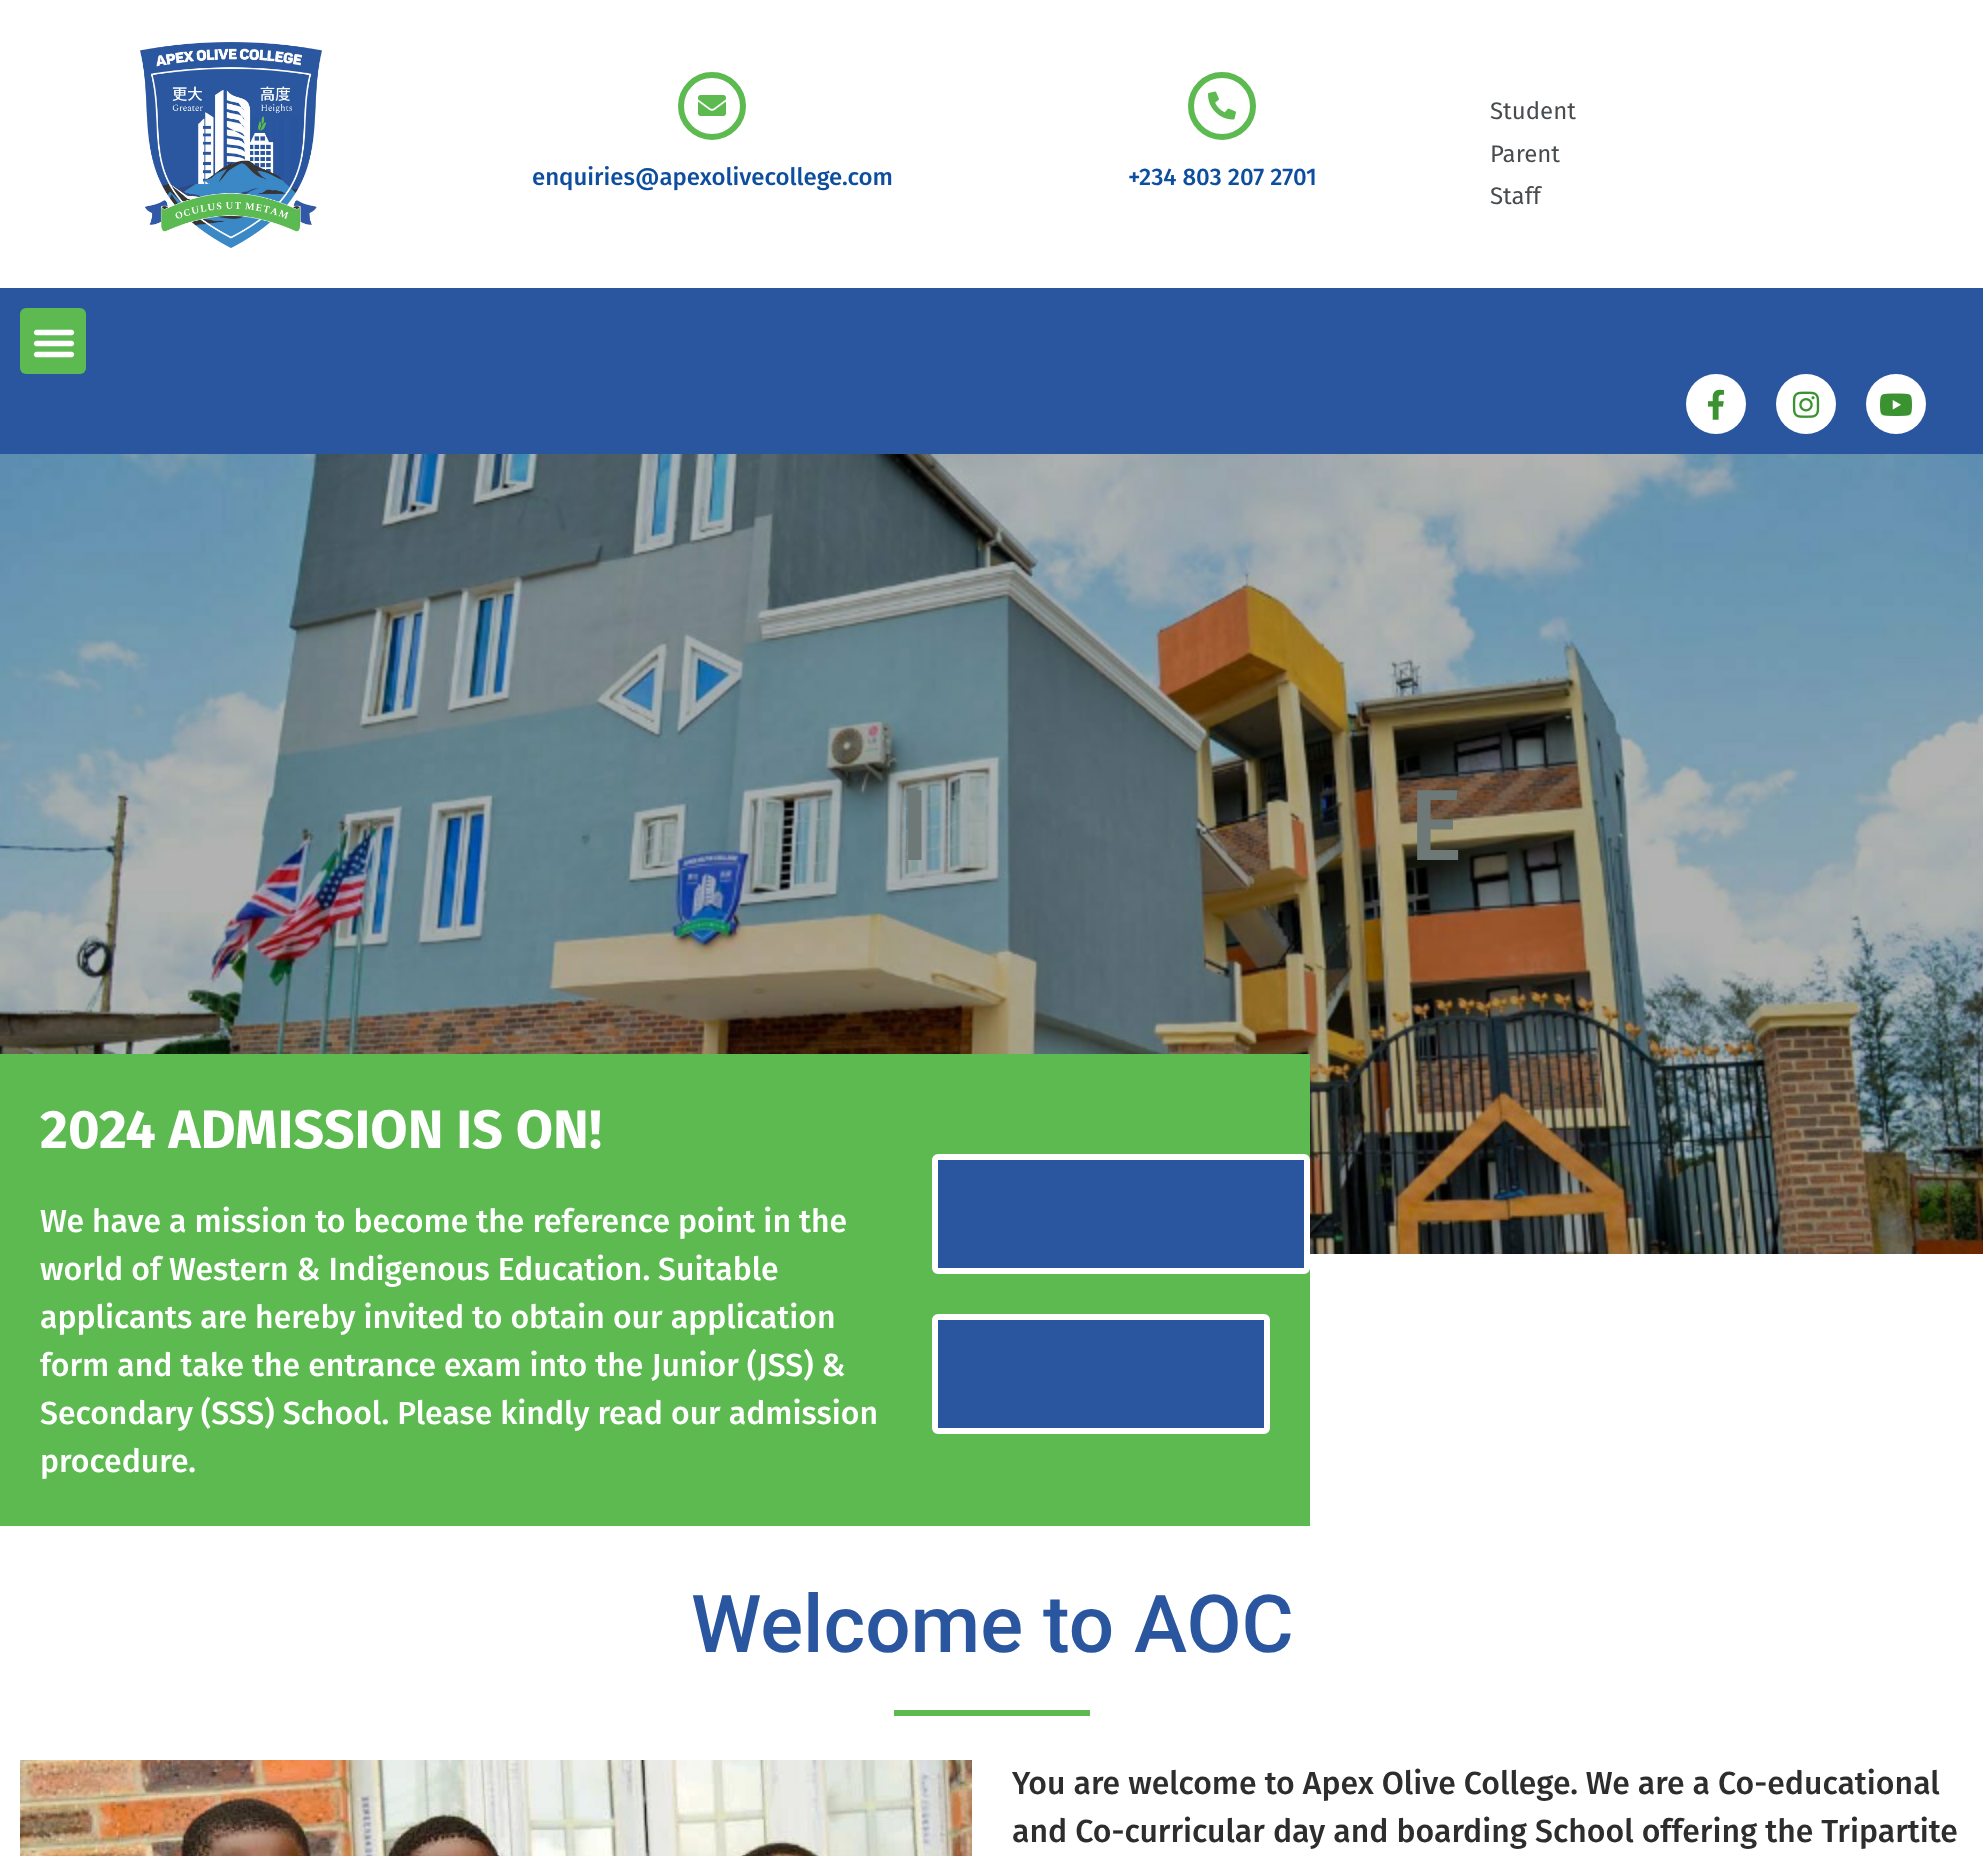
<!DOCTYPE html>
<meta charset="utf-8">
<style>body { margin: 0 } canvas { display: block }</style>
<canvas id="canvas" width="1983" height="1856"></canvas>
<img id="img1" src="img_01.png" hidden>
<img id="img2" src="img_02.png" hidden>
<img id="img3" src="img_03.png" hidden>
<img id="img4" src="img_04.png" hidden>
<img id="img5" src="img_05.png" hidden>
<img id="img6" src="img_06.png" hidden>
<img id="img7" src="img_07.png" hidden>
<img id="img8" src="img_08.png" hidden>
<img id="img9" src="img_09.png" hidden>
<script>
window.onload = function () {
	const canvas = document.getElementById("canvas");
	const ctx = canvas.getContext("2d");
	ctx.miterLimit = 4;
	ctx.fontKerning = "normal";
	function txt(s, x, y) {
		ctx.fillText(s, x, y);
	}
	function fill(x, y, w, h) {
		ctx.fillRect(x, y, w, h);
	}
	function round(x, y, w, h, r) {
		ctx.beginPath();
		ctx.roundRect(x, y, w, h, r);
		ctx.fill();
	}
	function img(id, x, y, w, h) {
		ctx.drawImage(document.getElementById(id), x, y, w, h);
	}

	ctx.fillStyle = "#FFFFFF";
	fill(0, 0, 1983, 1856);
	img("img1", 140, 42, 182, 206);
	ctx.beginPath();
	ctx.arc(712, 106, 31, 0, Math.PI * 2);
	ctx.strokeStyle = "#5CBA51";
	ctx.lineWidth = 6;
	ctx.stroke();
	img("img2", 698, 95, 28, 21);
	ctx.beginPath();
	ctx.arc(1222, 106, 31, 0, Math.PI * 2);
	ctx.stroke();
	img("img3", 1208, 91, 28, 29);
	ctx.fillStyle = "#2A569F";
	fill(0, 288, 1983, 166);
	ctx.fillStyle = "#5CBA51";
	round(20, 308, 66, 66, 6);
	img("img4", 33, 329, 42, 29);
	ctx.fillStyle = "#FFFFFF";
	ctx.beginPath();
	ctx.arc(1716, 404, 30, 0, Math.PI * 2);
	ctx.fill();
	img("img5", 1707, 389, 18, 31);
	ctx.beginPath();
	ctx.arc(1806, 404, 30, 0, Math.PI * 2);
	ctx.fill();
	img("img6", 1792, 391, 28, 27);
	ctx.beginPath();
	ctx.arc(1896, 404, 30, 0, Math.PI * 2);
	ctx.fill();
	img("img7", 1880, 393, 32, 23);
	img("img8", 0, 454, 1983, 800);
	ctx.fillStyle = "#5CBA51";
	fill(0, 1054, 1310, 472);
	ctx.fillStyle = "#2A569F";
	ctx.beginPath();
	ctx.roundRect(935, 1157, 372, 114, 3);
	ctx.fill();
	ctx.strokeStyle = "#FFFFFF";
	ctx.stroke();
	ctx.beginPath();
	ctx.roundRect(935, 1317, 332, 114, 3);
	ctx.fill();
	ctx.stroke();
	ctx.fillStyle = "#5CBA51";
	fill(894, 1710, 196, 6);
	img("img9", 20, 1760, 952, 96);
	ctx.font = "500 24px Fira Sans";
	ctx.fillStyle = "#0D4E9E";
	txt("enquiries@apexolivecollege.com", 532, 185);
	txt("+234 803 207 2701", 1128, 185);
	ctx.font = "24px Fira Sans";
	ctx.fillStyle = "#494C4F";
	txt("Student", 1490, 119);
	txt("Parent", 1490, 162);
	txt("Staff", 1490, 204);
	ctx.font = "500 101px Fira Sans";
	ctx.fillStyle = "#6D7877";
	txt("I", 900, 860);
	txt("E", 1409, 860);
	ctx.font = "bold 54px Fira Sans";
	ctx.fillStyle = "#FFFFFF";
	txt("2024 ADMISSION IS ON!", 40, 1148);
	ctx.font = "500 32px Fira Sans";
	txt("We have a mission to become the reference point in the", 40, 1232);
	txt("world of Western & Indigenous Education. Suitable", 40, 1280);
	txt("applicants are hereby invited to obtain our application", 40, 1328);
	txt("form and take the entrance exam into the Junior (JSS) &", 40, 1376);
	txt("Secondary (SSS) School. Please kindly read our admission", 40, 1424);
	txt("procedure.", 40, 1472);
	ctx.font = "500 80px Roboto";
	ctx.fillStyle = "#2A569F";
	txt("Welcome to AOC", 691, 1652);
	ctx.font = "500 32px Fira Sans";
	ctx.fillStyle = "#2D2D2D";
	txt("You are welcome to Apex Olive College. We are a Co-educational", 1012, 1794);
	txt("and Co-curricular day and boarding School offering the Tripartite", 1012, 1842);
};
</script>
